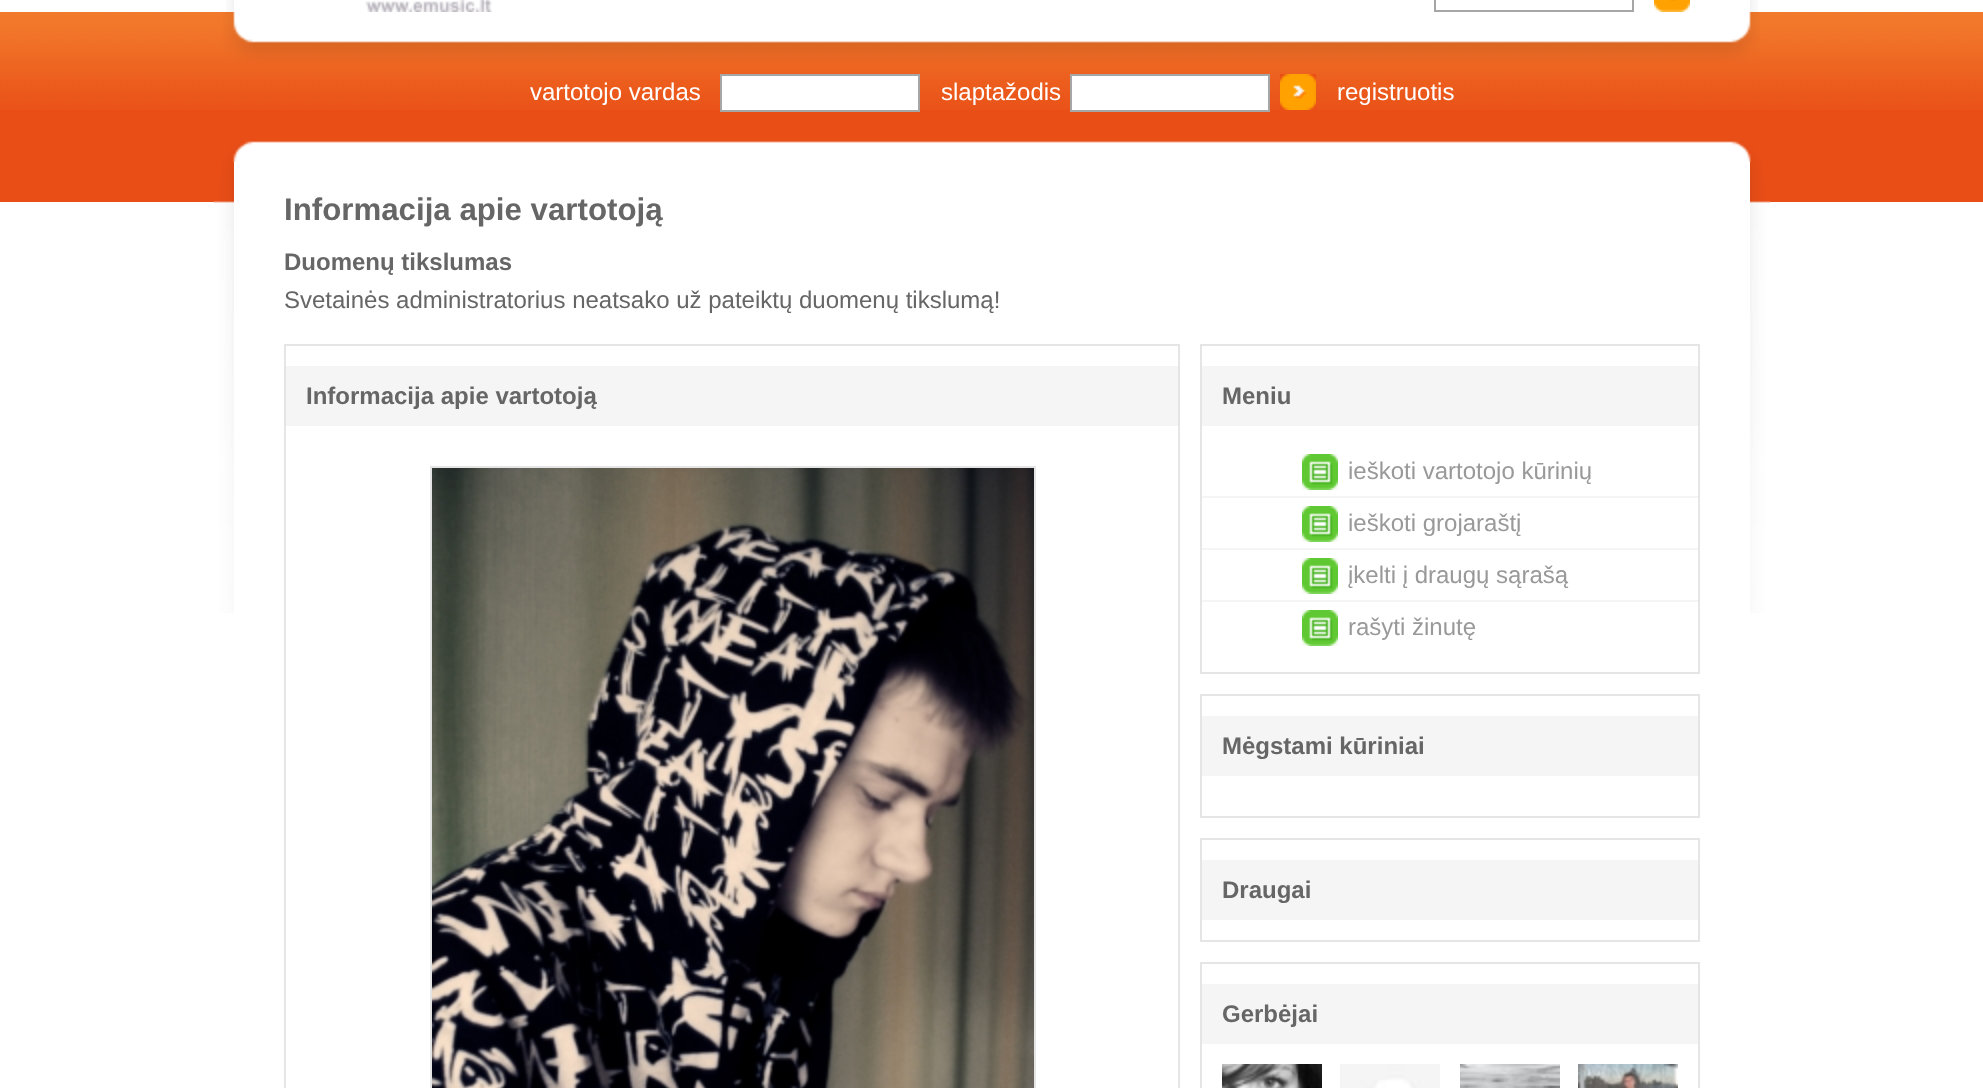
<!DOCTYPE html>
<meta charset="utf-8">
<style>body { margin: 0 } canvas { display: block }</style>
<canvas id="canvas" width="1983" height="1088"></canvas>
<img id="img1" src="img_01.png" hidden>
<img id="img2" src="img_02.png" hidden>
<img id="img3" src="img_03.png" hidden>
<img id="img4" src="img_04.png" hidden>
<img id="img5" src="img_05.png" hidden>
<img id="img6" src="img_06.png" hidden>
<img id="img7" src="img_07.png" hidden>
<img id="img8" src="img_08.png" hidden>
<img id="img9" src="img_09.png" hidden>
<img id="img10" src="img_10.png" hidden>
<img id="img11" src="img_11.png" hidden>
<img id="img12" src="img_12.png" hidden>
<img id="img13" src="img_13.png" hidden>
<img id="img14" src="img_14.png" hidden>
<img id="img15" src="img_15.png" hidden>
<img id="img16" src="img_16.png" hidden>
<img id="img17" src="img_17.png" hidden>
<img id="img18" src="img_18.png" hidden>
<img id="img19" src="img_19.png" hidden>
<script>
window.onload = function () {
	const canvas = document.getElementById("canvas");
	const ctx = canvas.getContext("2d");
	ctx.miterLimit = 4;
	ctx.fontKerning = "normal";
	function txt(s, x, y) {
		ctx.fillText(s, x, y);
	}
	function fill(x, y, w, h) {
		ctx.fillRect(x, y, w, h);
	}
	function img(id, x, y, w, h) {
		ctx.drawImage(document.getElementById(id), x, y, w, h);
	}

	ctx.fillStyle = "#FFFFFF";
	fill(0, 0, 1983, 1088);
	ctx.strokeStyle = "#A6A6A6";
	ctx.lineWidth = 2;
	ctx.strokeRect(1435, -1, 198, 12);
	img("img1", 1654, 0, 36, 12);
	img("img2", 226, 0, 8, 12);
	img("img3", 365, 0, 128, 12);
	img("img4", 1750, 0, 8, 12);
	ctx.fillStyle = "#E94E16";
	fill(0, 110, 1983, 92);
	img("img5", 0, 12, 1983, 98);
	img("img6", 223, 12, 1537, 50);
	ctx.fillStyle = "#FFFFFF";
	ctx.beginPath();
	ctx.rect(721, 75, 198, 36);
	ctx.fill();
	ctx.stroke();
	ctx.beginPath();
	ctx.rect(1071, 75, 198, 36);
	ctx.fill();
	ctx.stroke();
	img("img7", 1280, 74, 36, 36);
	img("img8", 253, 141, 739, 21);
	img("img9", 214, 141, 39, 21);
	img("img10", 992, 141, 739, 21);
	img("img11", 1731, 141, 39, 21);
	img("img12", 214, 162, 20, 451);
	fill(234, 162, 1516, 40);
	ctx.strokeStyle = "#E5E5E5";
	ctx.strokeRect(285, 345, 894, 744);
	ctx.fillStyle = "#F5F5F5";
	fill(286, 366, 892, 60);
	ctx.strokeRect(431, 467, 604, 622);
	img("img13", 432, 468, 602, 620);
	ctx.strokeRect(1201, 345, 498, 328);
	fill(1202, 366, 496, 60);
	img("img14", 1302, 454, 36, 36);
	fill(1202, 496, 496, 2);
	img("img14", 1302, 506, 36, 36);
	fill(1202, 548, 496, 2);
	img("img14", 1302, 558, 36, 36);
	fill(1202, 600, 496, 2);
	img("img14", 1302, 610, 36, 36);
	ctx.strokeRect(1201, 695, 498, 122);
	fill(1202, 716, 496, 60);
	ctx.strokeRect(1201, 839, 498, 102);
	fill(1202, 860, 496, 60);
	ctx.strokeRect(1201, 963, 498, 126);
	fill(1202, 984, 496, 60);
	img("img15", 1222, 1064, 100, 24);
	img("img16", 1340, 1064, 100, 24);
	img("img17", 1460, 1064, 100, 24);
	img("img18", 1578, 1064, 100, 24);
	img("img19", 1750, 162, 20, 451);
	ctx.font = "24px Liberation Sans";
	ctx.fillStyle = "#FFFFFF";
	txt("vartotojo vardas", 530, 100);
	txt("slaptažodis", 941, 100);
	txt("registruotis", 1337, 100);
	ctx.font = "bold 31.25px Liberation Sans";
	ctx.fillStyle = "#666666";
	txt("Informacija apie vartotoją", 284, 220);
	ctx.font = "bold 24px Liberation Sans";
	txt("Duomenų tikslumas", 284, 270);
	ctx.font = "24px Liberation Sans";
	txt("Svetainės administratorius neatsako už pateiktų duomenų tikslumą!", 284, 308);
	ctx.font = "bold 24px Liberation Sans";
	txt("Informacija apie vartotoją", 306, 404);
	txt("Meniu", 1222, 404);
	ctx.font = "24px Liberation Sans";
	ctx.fillStyle = "#999999";
	txt("ieškoti vartotojo kūrinių", 1348, 479);
	txt("ieškoti grojaraštį", 1348, 531);
	txt("įkelti į draugų sąrašą", 1348, 583);
	txt("rašyti žinutę", 1348, 635);
	ctx.font = "bold 24px Liberation Sans";
	ctx.fillStyle = "#666666";
	txt("Mėgstami kūriniai", 1222, 754);
	txt("Draugai", 1222, 898);
	txt("Gerbėjai", 1222, 1022);
};
</script>
